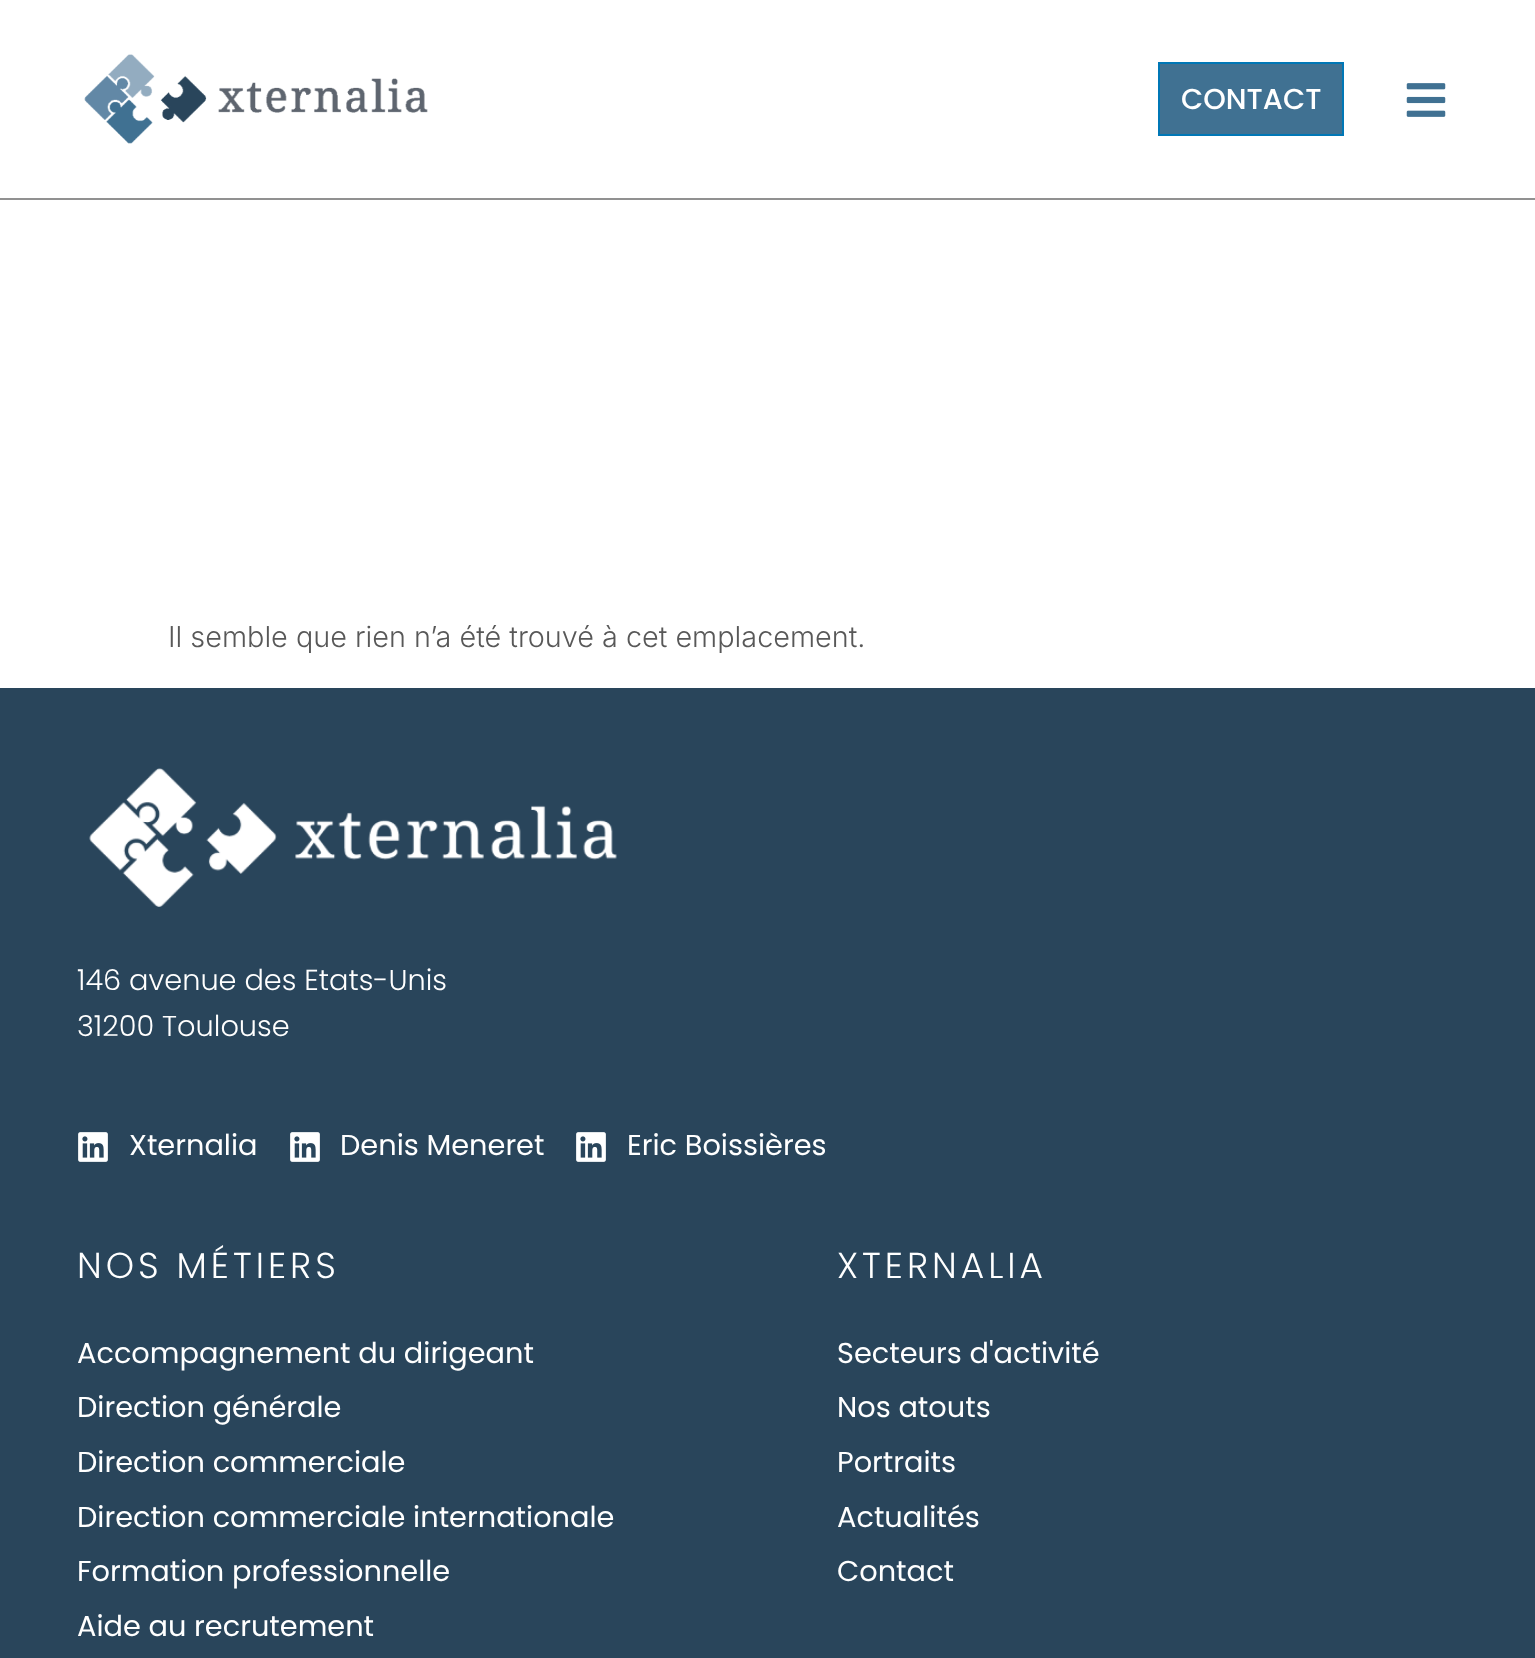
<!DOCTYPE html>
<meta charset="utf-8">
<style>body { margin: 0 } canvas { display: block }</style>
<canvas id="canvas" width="1535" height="1658"></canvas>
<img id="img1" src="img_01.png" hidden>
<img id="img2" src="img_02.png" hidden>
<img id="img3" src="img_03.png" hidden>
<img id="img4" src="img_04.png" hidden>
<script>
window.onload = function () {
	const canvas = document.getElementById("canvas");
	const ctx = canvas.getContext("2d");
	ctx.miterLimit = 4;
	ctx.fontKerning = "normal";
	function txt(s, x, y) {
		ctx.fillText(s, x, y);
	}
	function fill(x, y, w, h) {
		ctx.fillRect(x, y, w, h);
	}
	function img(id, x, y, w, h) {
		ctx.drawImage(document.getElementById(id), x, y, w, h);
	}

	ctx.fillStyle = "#FFFFFF";
	fill(0, 0, 1535, 1658);
	ctx.fillStyle = "#919191";
	fill(0, 198, 1535, 2);
	img("img1", 84, 54, 344, 90);
	ctx.fillStyle = "#407192";
	ctx.beginPath();
	ctx.rect(1159, 63, 184, 72);
	ctx.fill();
	ctx.strokeStyle = "#0077B6";
	ctx.lineWidth = 2;
	ctx.stroke();
	img("img2", 1406, 83, 40, 34);
	ctx.fillStyle = "#29455B";
	fill(0, 688, 1535, 970);
	img("img3", 89, 768, 528, 139);
	img("img4", 78, 1132, 30, 30);
	img("img4", 290, 1132, 30, 30);
	img("img4", 576, 1132, 30, 30);
	ctx.font = "500 28.8px Poppins";
	ctx.fillStyle = "#FFFFFF";
	txt("CONTACT", 1181, 109);
	ctx.font = "300 28.8px Inter";
	ctx.fillStyle = "#585858";
	txt("Il semble que rien n’a été trouvé à cet emplacement.", 168, 647);
	ctx.font = "300 28.8px Poppins";
	ctx.fillStyle = "#FFFFFF";
	txt("146 avenue des Etats-Unis", 77, 990);
	txt("31200 Toulouse", 77, 1036);
	ctx.font = "28.8px Poppins";
	txt("Xternalia", 129, 1155);
	txt("Denis Meneret", 340, 1155);
	txt("Eric Boissières", 627, 1155);
	ctx.letterSpacing = "4px";
	ctx.font = "300 36px Poppins";
	txt("NOS MÉTIERS", 77, 1278);
	ctx.letterSpacing = "0px";
	ctx.font = "28.8px Poppins";
	txt("Accompagnement du dirigeant", 77, 1363);
	txt("Direction générale", 77, 1417);
	txt("Direction commerciale", 77, 1472);
	txt("Direction commerciale internationale", 77, 1527);
	txt("Formation professionnelle", 77, 1581);
	txt("Aide au recrutement", 77, 1636);
	ctx.letterSpacing = "4px";
	ctx.font = "300 36px Poppins";
	txt("XTERNALIA", 837, 1278);
	ctx.letterSpacing = "0px";
	ctx.font = "28.8px Poppins";
	txt("Secteurs d'activité", 837, 1363);
	txt("Nos atouts", 837, 1417);
	txt("Portraits", 837, 1472);
	txt("Actualités", 837, 1527);
	txt("Contact", 837, 1581);
};
</script>
